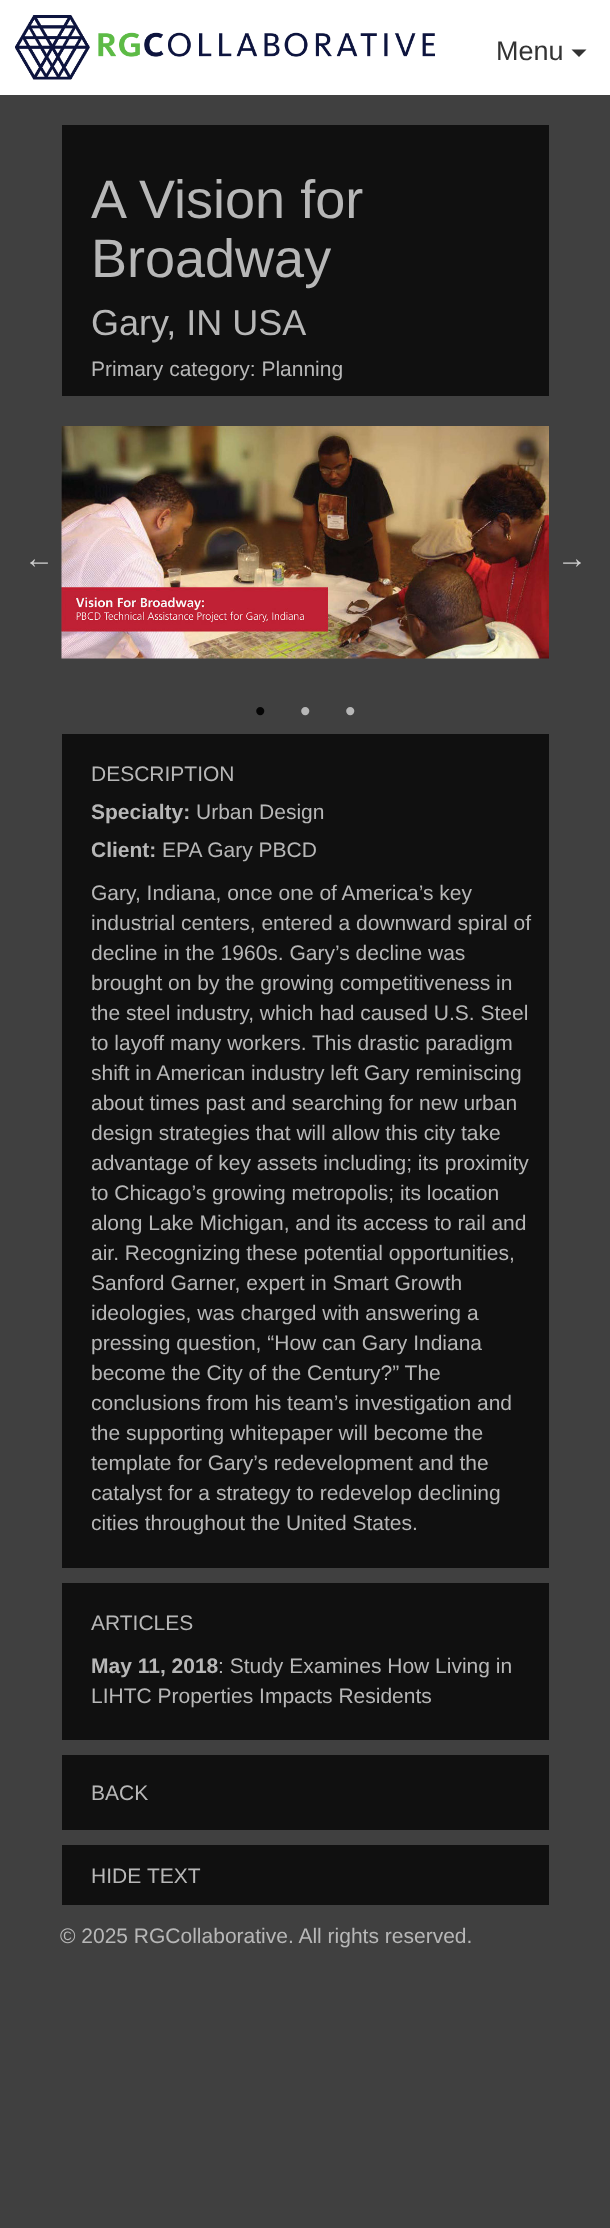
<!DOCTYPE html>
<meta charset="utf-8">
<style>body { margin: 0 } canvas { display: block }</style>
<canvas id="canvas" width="610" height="2228"></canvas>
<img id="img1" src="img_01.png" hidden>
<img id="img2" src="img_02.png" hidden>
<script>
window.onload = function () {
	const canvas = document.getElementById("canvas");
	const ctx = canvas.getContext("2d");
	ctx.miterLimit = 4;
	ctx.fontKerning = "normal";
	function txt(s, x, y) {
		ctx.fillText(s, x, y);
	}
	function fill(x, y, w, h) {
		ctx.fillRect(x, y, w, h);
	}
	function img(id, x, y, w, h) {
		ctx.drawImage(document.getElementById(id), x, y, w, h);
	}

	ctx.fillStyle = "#404040";
	fill(0, 0, 610, 2228);
	ctx.fillStyle = "#FFFFFF";
	fill(0, 0, 610, 95);
	img("img1", 15, 15, 420, 65);
	ctx.fillStyle = "#333333";
	ctx.beginPath();
	ctx.moveTo(571.5, 49.5);
	ctx.lineTo(586.5, 49.5);
	ctx.lineTo(579, 57);
	ctx.closePath();
	ctx.fill();
	ctx.fillStyle = "#101010";
	fill(62, 125, 487, 271);
	img("img2", 61, 426, 488, 233);
	fill(62, 734, 487, 834);
	fill(62, 1583, 487, 157);
	fill(62, 1755, 487, 75);
	fill(62, 1845, 487, 60);
	ctx.font = "27px Liberation Sans";
	ctx.fillStyle = "#333333";
	txt("Menu", 496, 60);
	ctx.font = "54px Liberation Sans";
	ctx.fillStyle = "#B7B7B7";
	txt("A Vision for", 91, 218);
	txt("Broadway", 91, 277);
	ctx.font = "36px Liberation Sans";
	txt("Gary, IN USA", 91, 335);
	ctx.font = "21px Liberation Sans";
	txt("Primary category: Planning", 91, 376);
	ctx.font = "30px Liberation Sans";
	ctx.fillStyle = "#CFCFCF";
	txt("←", 24, 568);
	txt("→", 557, 568);
	ctx.fillStyle = "#050505";
	txt("•", 255, 721);
	ctx.fillStyle = "#B7B7B7";
	txt("•", 300, 721);
	txt("•", 345, 721);
	ctx.font = "21px Liberation Sans";
	txt("DESCRIPTION", 91, 781);
	ctx.font = "bold 21px Liberation Sans";
	txt("Specialty:", 91, 819);
	ctx.font = "21px Liberation Sans";
	txt("Urban Design", 196, 819);
	ctx.font = "bold 21px Liberation Sans";
	txt("Client:", 91, 857);
	ctx.font = "21px Liberation Sans";
	txt("EPA Gary PBCD", 162, 857);
	txt("Gary, Indiana, once one of America’s key", 91, 900);
	txt("industrial centers, entered a downward spiral of", 91, 930);
	txt("decline in the 1960s. Gary’s decline was", 91, 960);
	txt("brought on by the growing competitiveness in", 91, 990);
	txt("the steel industry, which had caused U.S. Steel", 91, 1020);
	txt("to layoff many workers. This drastic paradigm", 91, 1050);
	txt("shift in American industry left Gary reminiscing", 91, 1080);
	txt("about times past and searching for new urban", 91, 1110);
	txt("design strategies that will allow this city take", 91, 1140);
	txt("advantage of key assets including; its proximity", 91, 1170);
	txt("to Chicago’s growing metropolis; its location", 91, 1200);
	txt("along Lake Michigan, and its access to rail and", 91, 1230);
	txt("air. Recognizing these potential opportunities,", 91, 1260);
	txt("Sanford Garner, expert in Smart Growth", 91, 1290);
	txt("ideologies, was charged with answering a", 91, 1320);
	txt("pressing question, “How can Gary Indiana", 91, 1350);
	txt("become the City of the Century?” The", 91, 1380);
	txt("conclusions from his team’s investigation and", 91, 1410);
	txt("the supporting whitepaper will become the", 91, 1440);
	txt("template for Gary’s redevelopment and the", 91, 1470);
	txt("catalyst for a strategy to redevelop declining", 91, 1500);
	txt("cities throughout the United States.", 91, 1530);
	txt("ARTICLES", 91, 1630);
	ctx.font = "bold 21px Liberation Sans";
	txt("May 11, 2018", 91, 1673);
	ctx.font = "21px Liberation Sans";
	txt(": Study Examines How Living in", 218, 1673);
	txt("LIHTC Properties Impacts Residents", 91, 1703);
	txt("BACK", 91, 1800);
	txt("HIDE", 91, 1883);
	txt("TEXT", 147, 1883);
	txt("© 2025 RGCollaborative. All rights reserved.", 60, 1943);
};
</script>
